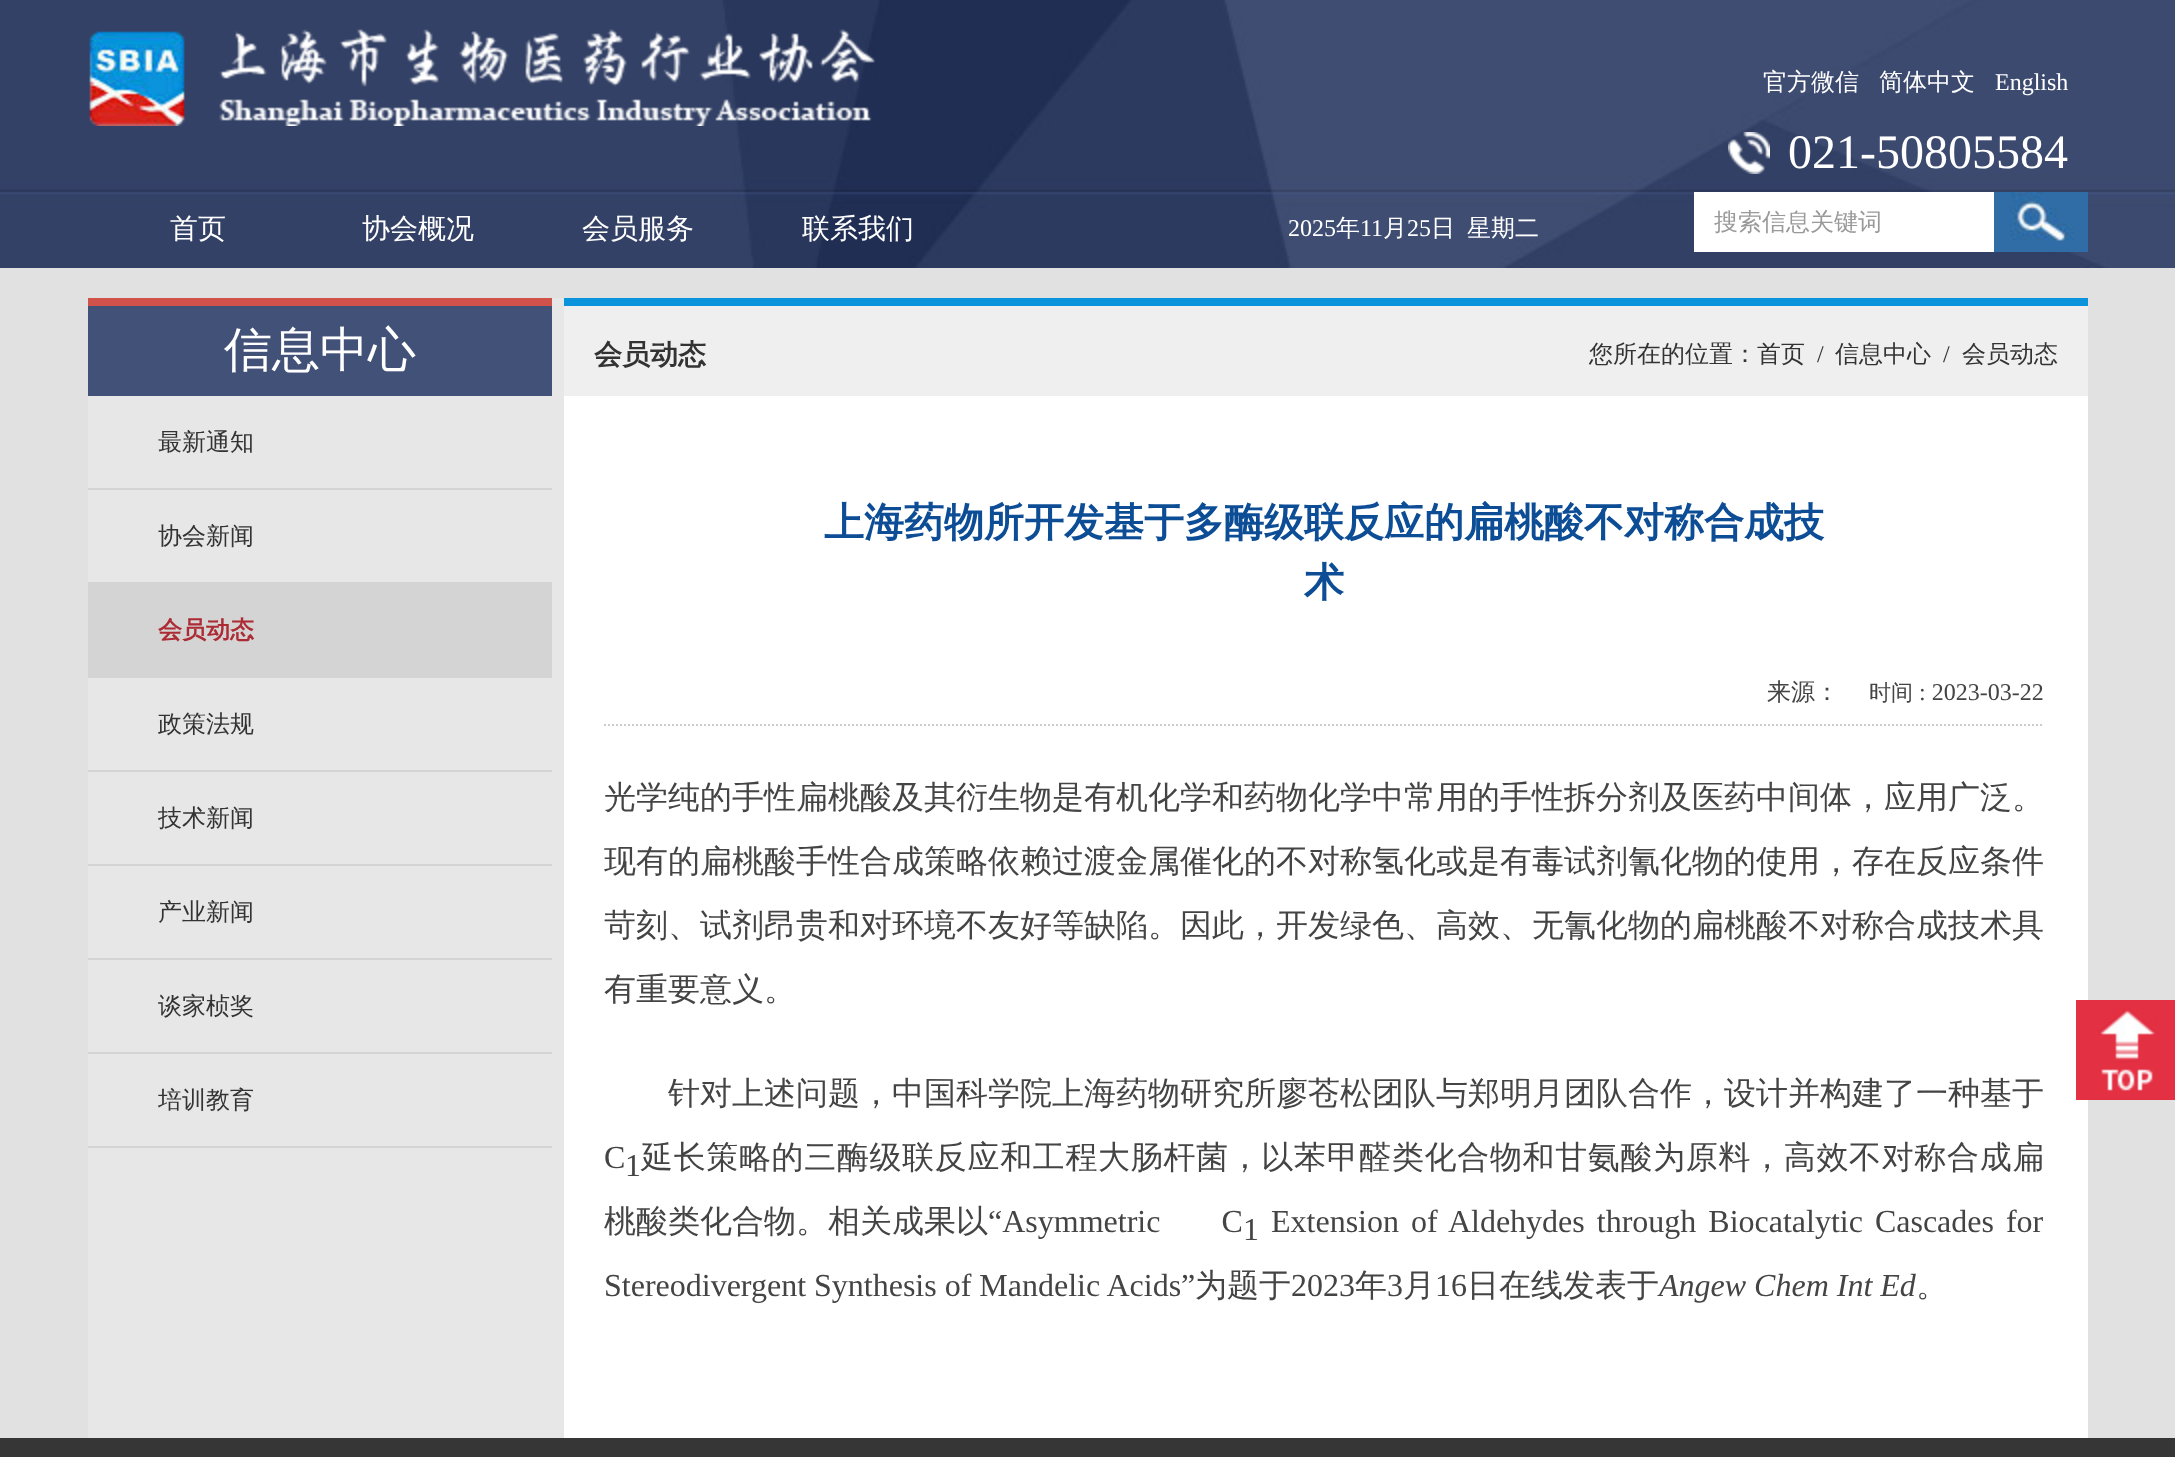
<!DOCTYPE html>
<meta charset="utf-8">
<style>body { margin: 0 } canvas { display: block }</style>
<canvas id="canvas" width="2175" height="1457"></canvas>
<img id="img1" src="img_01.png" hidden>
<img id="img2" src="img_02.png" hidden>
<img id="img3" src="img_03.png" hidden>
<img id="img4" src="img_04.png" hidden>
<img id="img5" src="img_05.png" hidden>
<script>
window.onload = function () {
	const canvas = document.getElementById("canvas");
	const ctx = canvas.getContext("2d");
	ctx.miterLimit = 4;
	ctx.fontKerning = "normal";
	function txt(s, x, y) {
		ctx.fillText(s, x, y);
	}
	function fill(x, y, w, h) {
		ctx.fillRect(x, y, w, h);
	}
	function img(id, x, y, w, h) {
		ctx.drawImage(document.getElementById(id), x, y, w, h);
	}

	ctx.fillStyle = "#E1E1E1";
	fill(0, 0, 2175, 1457);
	img("img1", 0, 0, 2175, 268);
	img("img2", 89, 29, 786, 97);
	img("img3", 1728, 132, 42, 42);
	ctx.fillStyle = "#FFFFFF";
	fill(1694, 192, 300, 60);
	img("img4", 1994, 192, 94, 60);
	ctx.fillStyle = "#E7E7E7";
	fill(88, 298, 476, 1140);
	ctx.fillStyle = "#425177";
	fill(88, 306, 464, 90);
	ctx.fillStyle = "#D0524A";
	fill(88, 298, 464, 8);
	ctx.fillStyle = "#D4D4D4";
	fill(88, 488, 464, 2);
	fill(88, 582, 464, 96);
	fill(88, 770, 464, 2);
	fill(88, 864, 464, 2);
	fill(88, 958, 464, 2);
	fill(88, 1052, 464, 2);
	fill(88, 1146, 464, 2);
	ctx.fillStyle = "#FFFFFF";
	fill(564, 396, 1524, 1042);
	ctx.fillStyle = "#EFEFEF";
	fill(564, 306, 1524, 90);
	ctx.fillStyle = "#0B94DC";
	fill(564, 298, 1524, 8);
	ctx.beginPath();
	ctx.moveTo(604, 725);
	ctx.lineTo(2044, 725);
	ctx.strokeStyle = "#CCCCCC";
	ctx.lineWidth = 2;
	ctx.setLineDash([2, 2]);
	ctx.stroke();
	img("img5", 2076, 1000, 99, 100);
	ctx.fillStyle = "#363636";
	fill(0, 1438, 2175, 19);
	ctx.font = "500 24px WenQuanYi Zen Hei";
	ctx.fillStyle = "#FFFFFF";
	txt("官方微信", 1763, 90);
	txt("简体中文", 1879, 90);
	ctx.font = "24px Liberation Serif";
	txt("English", 1995, 90);
	ctx.font = "48px Liberation Serif";
	txt("021-50805584", 1788, 168);
	ctx.font = "500 28px WenQuanYi Zen Hei";
	txt("首页", 170, 238);
	txt("协会概况", 362, 238);
	txt("会员服务", 582, 238);
	txt("联系我们", 802, 238);
	ctx.font = "24px Liberation Serif";
	txt("2025", 1288, 236);
	ctx.font = "500 24px WenQuanYi Zen Hei";
	txt("年", 1336, 236);
	ctx.font = "24px Liberation Serif";
	txt("11", 1360, 236);
	ctx.font = "500 24px WenQuanYi Zen Hei";
	txt("月", 1383, 236);
	ctx.font = "24px Liberation Serif";
	txt("25", 1407, 236);
	ctx.font = "500 24px WenQuanYi Zen Hei";
	txt("日", 1431, 236);
	txt("星期二", 1467, 236);
	ctx.fillStyle = "#999999";
	txt("搜索信息关键词", 1714, 230);
	ctx.font = "500 48px WenQuanYi Zen Hei";
	ctx.fillStyle = "#FFFFFF";
	txt("信息中心", 224, 366);
	ctx.font = "500 24px WenQuanYi Zen Hei";
	ctx.fillStyle = "#333333";
	txt("最新通知", 158, 450);
	txt("协会新闻", 158, 544);
	ctx.font = "bold 24px WenQuanYi Zen Hei";
	ctx.fillStyle = "#AD2B34";
	txt("会员动态", 158, 638);
	ctx.font = "500 24px WenQuanYi Zen Hei";
	ctx.fillStyle = "#333333";
	txt("政策法规", 158, 732);
	txt("技术新闻", 158, 826);
	txt("产业新闻", 158, 920);
	txt("谈家桢奖", 158, 1014);
	txt("培训教育", 158, 1108);
	ctx.font = "bold 28px WenQuanYi Zen Hei";
	txt("会员动态", 594, 364);
	ctx.font = "500 24px WenQuanYi Zen Hei";
	txt("您所在的位置：首页", 1589, 362);
	ctx.font = "24px Liberation Serif";
	txt("/", 1817, 362);
	ctx.font = "500 24px WenQuanYi Zen Hei";
	txt("信息中心", 1835, 362);
	ctx.font = "24px Liberation Serif";
	txt("/", 1943, 362);
	ctx.font = "500 24px WenQuanYi Zen Hei";
	txt("会员动态", 1962, 362);
	ctx.font = "bold 40px WenQuanYi Zen Hei";
	ctx.fillStyle = "#0C4D96";
	txt("上海药物所开发基于多酶级联反应的扁桃酸不对称合成技", 824, 536);
	txt("术", 1304, 596);
	ctx.font = "500 24px WenQuanYi Zen Hei";
	ctx.fillStyle = "#444444";
	txt("来源：", 1767, 700);
	ctx.font = "500 22px WenQuanYi Zen Hei";
	txt("时间", 1869, 700);
	ctx.font = "24px Liberation Serif";
	txt(": 2023-03-22", 1919, 700);
	ctx.font = "500 32px WenQuanYi Zen Hei";
	txt("光学纯的手性扁桃酸及其衍生物是有机化学和药物化学中常用的手性拆分剂及医药中间体，应用广泛。", 604, 808);
	txt("现有的扁桃酸手性合成策略依赖过渡金属催化的不对称氢化或是有毒试剂氰化物的使用，存在反应条件", 604, 872);
	txt("苛刻、试剂昂贵和对环境不友好等缺陷。因此，开发绿色、高效、无氰化物的扁桃酸不对称合成技术具", 604, 936);
	txt("有重要意义。", 604, 1000);
	txt("针对上述问题，中国科学院上海药物研究所廖苍松团队与郑明月团队合作，设计并构建了一种基于", 668, 1104);
	ctx.font = "32px Liberation Serif";
	txt("C", 604, 1168);
	txt("1", 625, 1176);
	ctx.letterSpacing = "0.65px";
	ctx.font = "500 32px WenQuanYi Zen Hei";
	txt("延长策略的三酶级联反应和工程大肠杆菌，以苯甲醛类化合物和甘氨酸为原料，高效不对称合成扁", 641, 1168);
	ctx.letterSpacing = "0px";
	txt("桃酸类化合物。相关成果以", 604, 1232);
	ctx.wordSpacing = "53px";
	ctx.font = "32px Liberation Serif";
	txt("“Asymmetric C", 988, 1232);
	ctx.wordSpacing = "0px";
	txt("1", 1243, 1240);
	ctx.wordSpacing = "4px";
	txt("Extension of Aldehydes through Biocatalytic Cascades for", 1271, 1232);
	ctx.wordSpacing = "0px";
	txt("Stereodivergent Synthesis of Mandelic Acids”", 604, 1296);
	ctx.font = "500 32px WenQuanYi Zen Hei";
	txt("为题于", 1195, 1296);
	ctx.font = "32px Liberation Serif";
	txt("2023", 1291, 1296);
	ctx.font = "500 32px WenQuanYi Zen Hei";
	txt("年", 1355, 1296);
	ctx.font = "32px Liberation Serif";
	txt("3", 1387, 1296);
	ctx.font = "500 32px WenQuanYi Zen Hei";
	txt("月", 1403, 1296);
	ctx.font = "32px Liberation Serif";
	txt("16", 1435, 1296);
	ctx.font = "500 32px WenQuanYi Zen Hei";
	txt("日在线发表于", 1467, 1296);
	ctx.font = "italic 32px Liberation Serif";
	txt("Angew Chem Int Ed", 1659, 1296);
	ctx.font = "500 32px WenQuanYi Zen Hei";
	txt("。", 1916, 1296);
};
</script>
